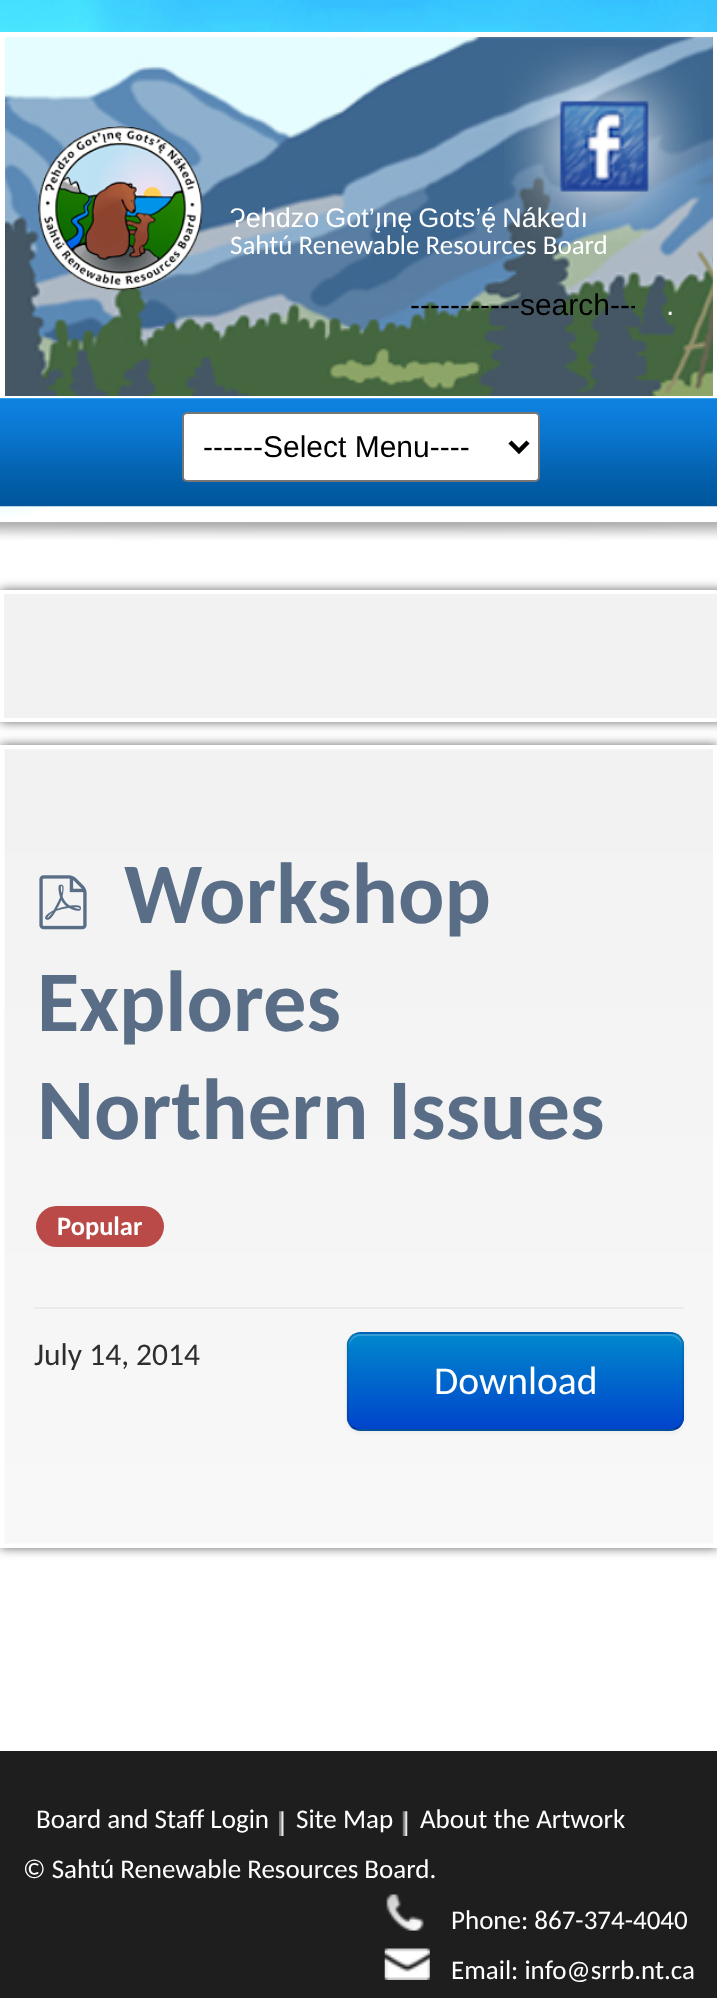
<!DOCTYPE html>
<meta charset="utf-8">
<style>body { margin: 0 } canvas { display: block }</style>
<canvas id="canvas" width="717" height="1998"></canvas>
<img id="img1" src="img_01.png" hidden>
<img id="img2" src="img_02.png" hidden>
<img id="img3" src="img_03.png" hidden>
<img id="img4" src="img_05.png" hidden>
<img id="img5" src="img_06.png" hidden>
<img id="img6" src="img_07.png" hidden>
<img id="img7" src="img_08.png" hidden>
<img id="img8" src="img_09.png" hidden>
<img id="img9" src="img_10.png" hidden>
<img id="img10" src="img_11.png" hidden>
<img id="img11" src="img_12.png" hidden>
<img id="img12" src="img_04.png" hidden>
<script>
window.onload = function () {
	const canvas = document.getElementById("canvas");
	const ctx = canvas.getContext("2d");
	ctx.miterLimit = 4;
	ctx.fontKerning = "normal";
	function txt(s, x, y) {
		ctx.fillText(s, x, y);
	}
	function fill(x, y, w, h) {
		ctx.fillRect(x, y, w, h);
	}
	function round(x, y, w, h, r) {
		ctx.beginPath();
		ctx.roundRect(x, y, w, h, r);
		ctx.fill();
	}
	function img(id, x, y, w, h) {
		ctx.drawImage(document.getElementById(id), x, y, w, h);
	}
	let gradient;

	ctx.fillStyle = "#FFFFFF";
	fill(0, 0, 717, 1998);
	img("img1", 0, 0, 717, 519);
	img("img2", 5, 37, 708, 359);
	fill(0, 32, 717, 5);
	fill(713, 32, 4, 366);
	fill(0, 396, 717, 2);
	fill(0, 32, 5, 366);
	img("img3", 38, 126, 165, 165);
	img("img4", 0, 522, 717, 18);
	img("img5", 0, 398, 717, 109);
	ctx.beginPath();
	ctx.roundRect(183, 413, 356, 68, 4);
	ctx.fill();
	ctx.strokeStyle = "#767676";
	ctx.lineWidth = 2;
	ctx.stroke();
	ctx.beginPath();
	ctx.moveTo(510, 442);
	ctx.lineTo(519, 451);
	ctx.lineTo(528, 442);
	ctx.strokeStyle = "#000000";
	ctx.lineWidth = 4.5;
	ctx.stroke();
	ctx.save();
	ctx.beginPath();
	ctx.moveTo(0, 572);
	ctx.lineTo(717, 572);
	ctx.lineTo(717, 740);
	ctx.lineTo(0, 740);
	ctx.closePath();
	ctx.moveTo(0, 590);
	ctx.lineTo(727, 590);
	ctx.lineTo(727, 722);
	ctx.lineTo(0, 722);
	ctx.closePath();
	ctx.clip("evenodd");
	ctx.fillStyle = "rgba(50, 50, 50, 0.75)";
	ctx.filter = "blur(5.5px)";
	ctx.beginPath();
	ctx.rect(0, 590, 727, 132);
	ctx.fill();
	ctx.filter = "none";
	ctx.restore();
	ctx.fillStyle = "#F2F2F2";
	fill(4, 594, 713, 124);
	ctx.save();
	ctx.beginPath();
	ctx.moveTo(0, 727);
	ctx.lineTo(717, 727);
	ctx.lineTo(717, 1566);
	ctx.lineTo(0, 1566);
	ctx.closePath();
	ctx.moveTo(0, 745);
	ctx.lineTo(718, 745);
	ctx.lineTo(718, 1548);
	ctx.lineTo(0, 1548);
	ctx.closePath();
	ctx.clip("evenodd");
	ctx.fillStyle = "rgba(50, 50, 50, 0.75)";
	ctx.filter = "blur(5.5px)";
	ctx.beginPath();
	ctx.rect(0, 745, 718, 803);
	ctx.fill();
	ctx.filter = "none";
	ctx.restore();
	img("img6", 4, 749, 709, 795);
	img("img7", 39, 875, 48, 55);
	ctx.fillStyle = "#B94A48";
	round(36, 1206, 128, 41, 20.5);
	ctx.fillStyle = "#EAEAEA";
	fill(34, 1307, 650, 2);
	ctx.fillStyle = "rgba(0, 0, 0, 0.05)";
	ctx.filter = "blur(2px)";
	ctx.beginPath();
	ctx.roundRect(347, 1334, 337, 99, 14);
	ctx.fill();
	ctx.filter = "none";
	ctx.fillStyle = "#006DCC";
	round(347, 1332, 337, 99, 14);
	ctx.save();
	ctx.beginPath();
	ctx.roundRect(347, 1332, 337, 99, 14);
	ctx.clip();
	gradient = ctx.createLinearGradient(515, 1334, 515, 1429);
	gradient.addColorStop(0, "#0088CC");
	gradient.addColorStop(1, "#0044CC");
	ctx.fillStyle = gradient;
	fill(347, 1334, 337, 95);
	ctx.restore();
	ctx.fillStyle = "rgba(255, 255, 255, 0.2)";
	ctx.beginPath();
	ctx.moveTo(360, 1336);
	ctx.lineTo(670, 1336);
	ctx.bezierCurveTo(677, 1336, 682, 1342, 682, 1348);
	ctx.lineTo(682, 1345);
	ctx.bezierCurveTo(682, 1339, 677, 1334, 671, 1334);
	ctx.lineTo(360, 1334);
	ctx.bezierCurveTo(354, 1334, 349, 1339, 349, 1345);
	ctx.lineTo(349, 1348);
	ctx.bezierCurveTo(349, 1342, 354, 1336, 360, 1336);
	ctx.closePath();
	ctx.fill();
	ctx.beginPath();
	ctx.moveTo(679.5, 1426.5);
	ctx.bezierCurveTo(677, 1428.5, 674, 1430, 670.5, 1430);
	ctx.lineTo(360, 1430);
	ctx.bezierCurveTo(356.5, 1430, 353.5, 1428.5, 351, 1426.5);
	ctx.strokeStyle = "rgba(0, 0, 0, 0.25)";
	ctx.lineWidth = 2.2;
	ctx.stroke();
	ctx.beginPath();
	ctx.moveTo(351, 1426.5);
	ctx.bezierCurveTo(349, 1424, 347.5, 1421, 347.5, 1417.5);
	ctx.lineTo(347.5, 1345.5);
	ctx.bezierCurveTo(347.5, 1342, 349, 1339, 351, 1336.5);
	ctx.bezierCurveTo(353.5, 1334.5, 356.5, 1333, 360, 1333);
	ctx.lineTo(670.5, 1333);
	ctx.bezierCurveTo(674, 1333, 677, 1334.5, 679.5, 1336.5);
	ctx.bezierCurveTo(681.5, 1339, 683, 1342, 683, 1345.5);
	ctx.lineTo(683, 1417.5);
	ctx.bezierCurveTo(683, 1421, 681.5, 1424, 679.5, 1426.5);
	ctx.strokeStyle = "rgba(0, 0, 0, 0.1)";
	ctx.stroke();
	ctx.fillStyle = "#1E1E1E";
	fill(0, 1751, 717, 247);
	img("img8", 279, 1811, 5, 25);
	img("img9", 402, 1811, 6, 25);
	img("img10", 386, 1894, 38, 37);
	img("img11", 384, 1948, 46, 32);
	ctx.wordSpacing = "-1.5px";
	ctx.font = "27px Liberation Sans";
	ctx.fillStyle = "#FFFFFF";
	txt("Ɂehdzo Got’ı̨nę Gots’ę́ Nákedı", 230, 227);
	ctx.wordSpacing = "0px";
	ctx.font = "27px Carlito";
	txt("Sahtú Renewable Resources Board", 230, 254);
	img("img12", 504, 46, 199, 197);
	ctx.save();
	ctx.beginPath();
	ctx.rect(410, 284, 225, 42);
	ctx.clip();
	ctx.font = "30px Liberation Sans";
	ctx.fillStyle = "#000000";
	txt("-----------search---", 410, 315);
	ctx.restore();
	ctx.font = "30px Liberation Sans";
	ctx.fillStyle = "#F2F2F2";
	txt(".", 666, 315);
	ctx.fillStyle = "#000000";
	txt("------Select Menu----", 203, 457);
	ctx.font = "bold 86.5px Carlito";
	ctx.fillStyle = "#596E86";
	txt("Workshop", 124, 923);
	txt("Explores", 37, 1031);
	txt("Northern Issues", 37, 1139);
	ctx.font = "bold 26.5px Carlito";
	ctx.fillStyle = "#FFFFFF";
	txt("Popular", 57, 1235);
	ctx.font = "31.5px Carlito";
	ctx.fillStyle = "#2E2E2E";
	txt("July 14, 2014", 34, 1365);
	ctx.font = "39.5px Carlito";
	ctx.fillStyle = "#FFFFFF";
	txt("Download", 434, 1394);
	ctx.font = "27px Carlito";
	txt("Board and Staff Login", 36, 1828);
	txt("Site Map", 296, 1828);
	txt("About the Artwork", 420, 1828);
	txt("© Sahtú Renewable Resources Board.", 23, 1878);
	txt("Phone: 867-374-4040", 451, 1929);
	txt("Email: info@srrb.nt.ca", 451, 1979);
};
</script>
